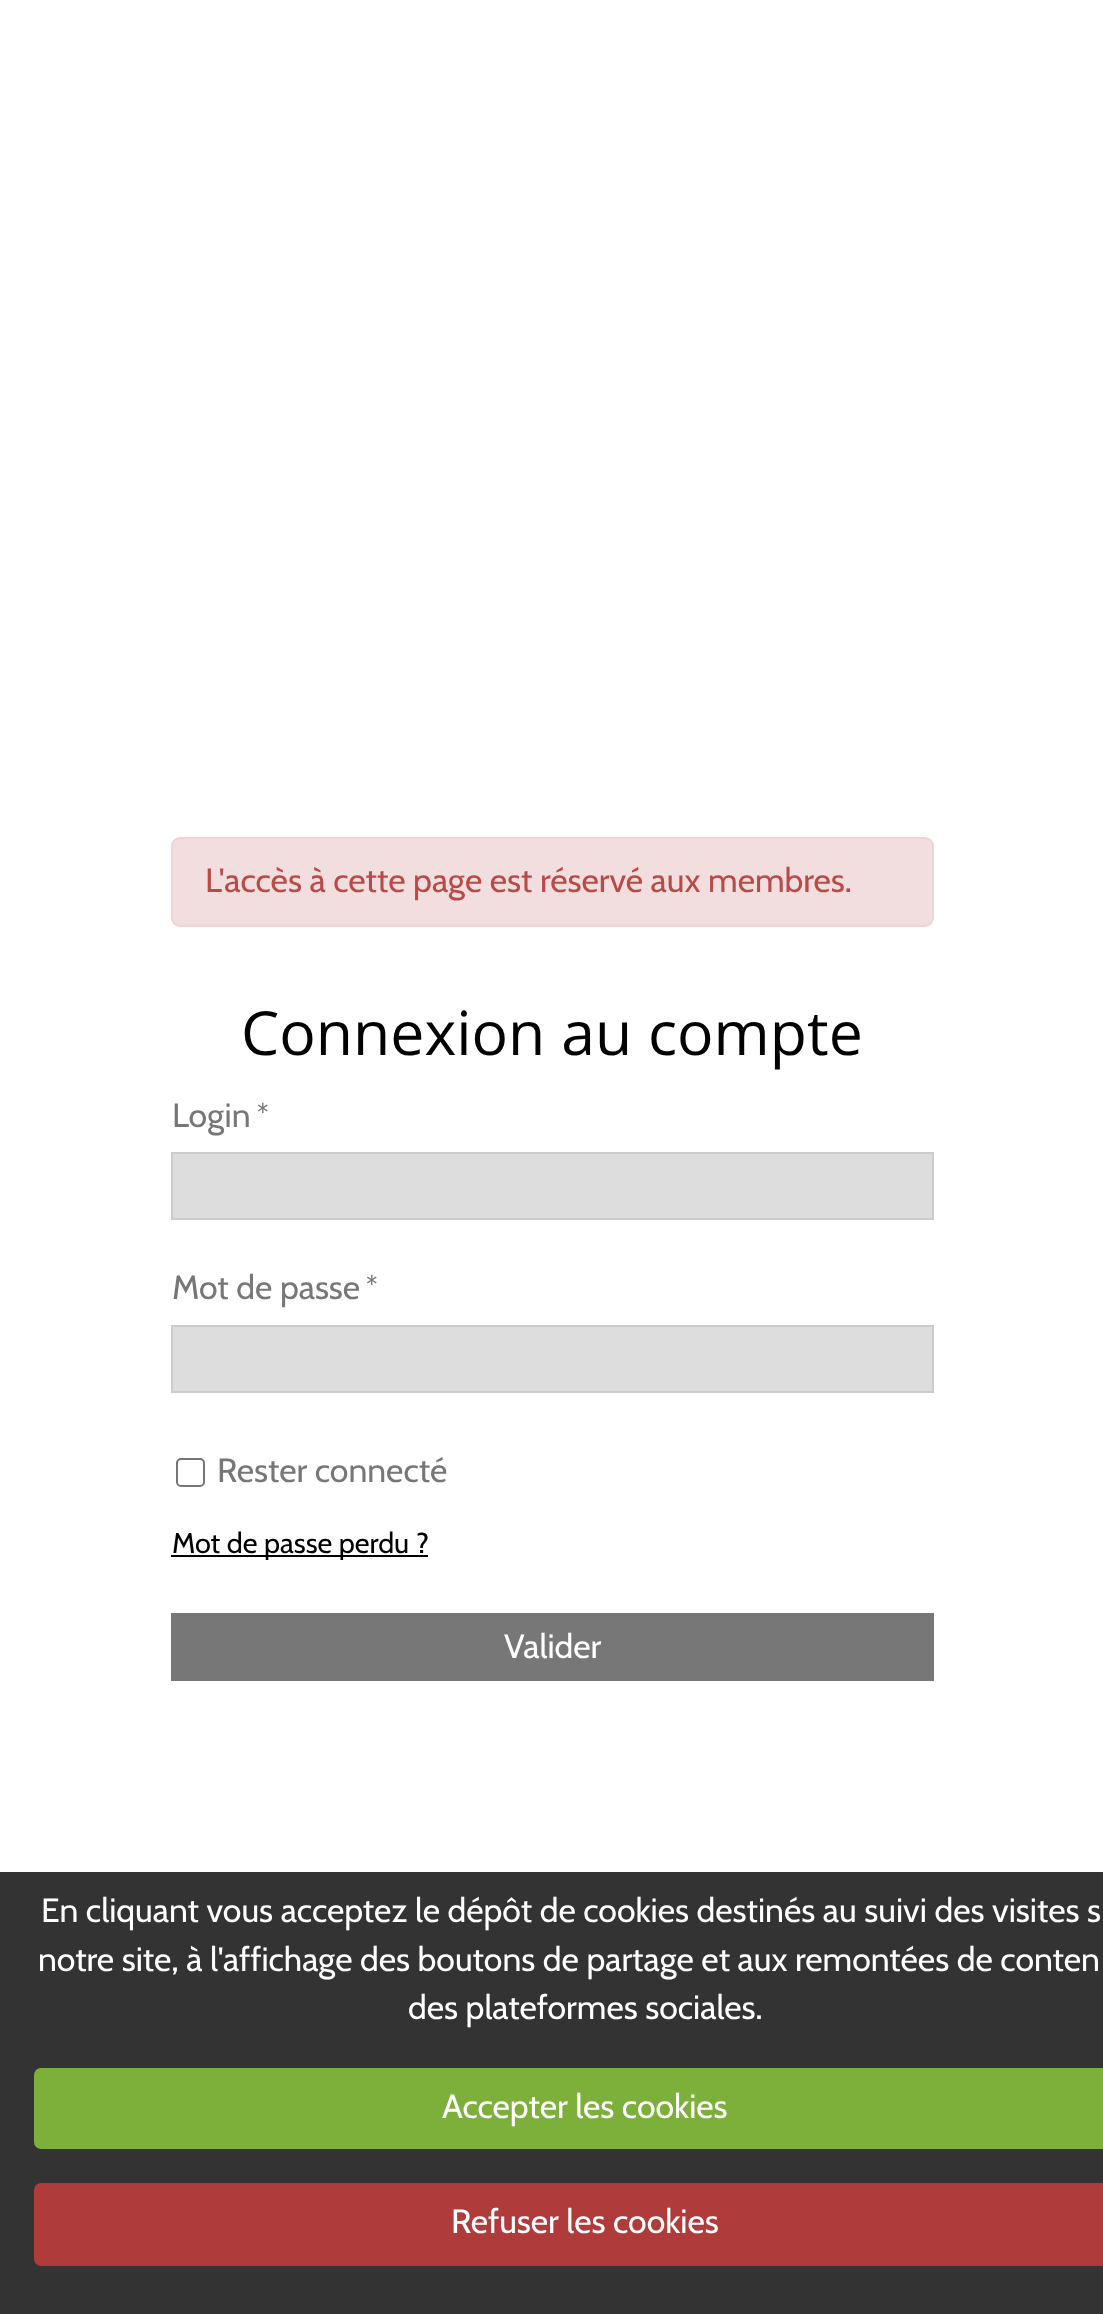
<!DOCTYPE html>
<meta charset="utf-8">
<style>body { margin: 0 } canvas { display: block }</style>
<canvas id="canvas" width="1103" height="2314"></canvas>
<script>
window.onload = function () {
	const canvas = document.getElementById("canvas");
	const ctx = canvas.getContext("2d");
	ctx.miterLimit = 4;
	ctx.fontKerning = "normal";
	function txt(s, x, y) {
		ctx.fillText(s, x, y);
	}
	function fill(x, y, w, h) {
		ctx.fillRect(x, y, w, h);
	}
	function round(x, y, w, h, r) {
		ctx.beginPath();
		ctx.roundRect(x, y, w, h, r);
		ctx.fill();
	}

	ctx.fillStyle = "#FFFFFF";
	fill(0, 0, 1103, 2314);
	ctx.fillStyle = "#F2DEDE";
	ctx.beginPath();
	ctx.roundRect(172, 838, 761, 88, 8);
	ctx.fill();
	ctx.strokeStyle = "#EED3D7";
	ctx.lineWidth = 2;
	ctx.stroke();
	ctx.fillStyle = "#DDDDDD";
	ctx.beginPath();
	ctx.rect(172, 1153, 761, 66);
	ctx.fill();
	ctx.strokeStyle = "#CCCCCC";
	ctx.stroke();
	ctx.beginPath();
	ctx.rect(172, 1326, 761, 66);
	ctx.fill();
	ctx.stroke();
	ctx.beginPath();
	ctx.roundRect(177, 1459, 27, 27, 4);
	ctx.strokeStyle = "#767676";
	ctx.stroke();
	ctx.fillStyle = "#000000";
	fill(171, 1555, 257, 2);
	ctx.fillStyle = "#777777";
	fill(171, 1613, 763, 68);
	ctx.fillStyle = "#333333";
	fill(0, 1872, 1103, 442);
	ctx.fillStyle = "#7DAF3B";
	round(34, 2068, 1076, 81, 7);
	ctx.fillStyle = "#AF3B3B";
	round(34, 2183, 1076, 83, 7);
	ctx.font = "33.75px Cabin";
	ctx.fillStyle = "#B94A48";
	txt("L'accès à cette page est réservé aux membres.", 205, 892);
	ctx.font = "60.75px Open Sans";
	ctx.fillStyle = "#000000";
	txt("Connexion au compte", 241, 1055);
	ctx.font = "33.75px Cabin";
	ctx.fillStyle = "#777777";
	txt("Login", 172, 1127);
	ctx.font = "27px Cabin";
	txt("*", 257, 1123);
	ctx.font = "33.75px Cabin";
	txt("Mot de passe", 172, 1299);
	ctx.font = "27px Cabin";
	txt("*", 366, 1295);
	ctx.font = "33.75px Cabin";
	txt("Rester connecté", 217, 1482);
	ctx.font = "28.75px Cabin";
	ctx.fillStyle = "#000000";
	txt("Mot de passe perdu ?", 172, 1553);
	ctx.font = "33.75px Cabin";
	ctx.fillStyle = "#FFFFFF";
	txt("Valider", 504, 1658);
	txt("En cliquant vous acceptez le dépôt de cookies destinés au suivi des visites s", 41, 1922);
	txt("notre site, à l'affichage des boutons de partage et aux remontées de conten", 38, 1971);
	txt("des plateformes sociales.", 408, 2019);
	txt("Accepter les cookies", 442, 2118);
	txt("Refuser les cookies", 451, 2233);
};
</script>
